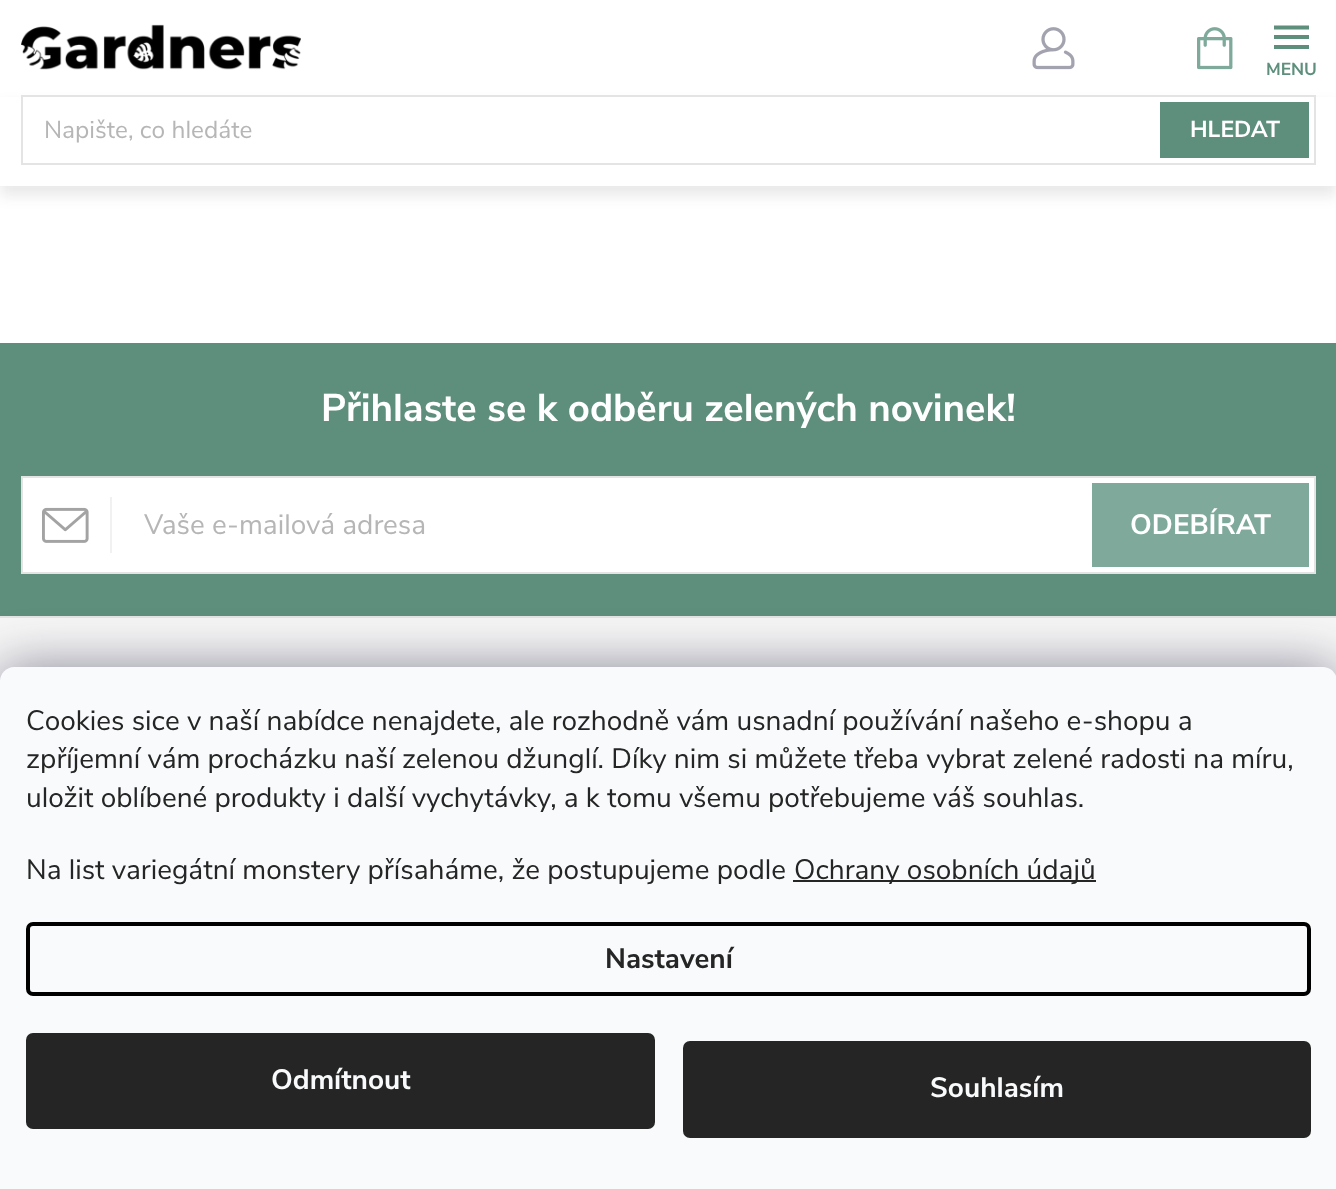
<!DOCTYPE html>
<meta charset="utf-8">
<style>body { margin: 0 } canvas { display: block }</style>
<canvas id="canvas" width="1336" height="1189"></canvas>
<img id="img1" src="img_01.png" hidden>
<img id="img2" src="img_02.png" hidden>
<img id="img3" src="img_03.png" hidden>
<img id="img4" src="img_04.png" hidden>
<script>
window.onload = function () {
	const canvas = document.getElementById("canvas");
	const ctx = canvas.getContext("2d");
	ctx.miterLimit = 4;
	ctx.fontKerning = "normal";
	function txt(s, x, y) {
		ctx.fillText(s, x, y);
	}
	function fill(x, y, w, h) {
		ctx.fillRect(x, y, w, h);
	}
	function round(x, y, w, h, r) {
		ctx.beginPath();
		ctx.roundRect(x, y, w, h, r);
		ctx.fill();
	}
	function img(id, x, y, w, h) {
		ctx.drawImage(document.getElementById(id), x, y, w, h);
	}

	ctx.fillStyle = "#FFFFFF";
	fill(0, 0, 1336, 1189);
	img("img1", 1032, 27, 43, 43);
	ctx.fillStyle = "#5E8F7C";
	ctx.beginPath();
	ctx.moveTo(1274, 49);
	ctx.lineTo(1309, 49);
	ctx.lineTo(1309, 45);
	ctx.lineTo(1274, 45);
	ctx.closePath();
	ctx.moveTo(1274, 39);
	ctx.lineTo(1309, 39);
	ctx.lineTo(1309, 35);
	ctx.lineTo(1274, 35);
	ctx.closePath();
	ctx.moveTo(1274, 25.5);
	ctx.lineTo(1274, 29.5);
	ctx.lineTo(1309, 29.5);
	ctx.lineTo(1309, 25.5);
	ctx.closePath();
	ctx.fill();
	ctx.fillStyle = "rgba(36, 36, 46, 0.1)";
	ctx.filter = "blur(7px)";
	ctx.beginPath();
	ctx.rect(0, 105, 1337, 91);
	ctx.fill();
	ctx.filter = "none";
	ctx.fillStyle = "#FFFFFF";
	fill(0, 97, 1336, 89);
	img("img2", 21, 24, 280, 46);
	img("img3", 1197, 27, 36, 43);
	ctx.strokeStyle = "#E4E4E4";
	ctx.lineWidth = 2;
	ctx.strokeRect(22, 96, 1293, 68);
	ctx.fillStyle = "#5E8F7C";
	fill(1160, 102, 149, 56);
	ctx.fillStyle = "#F6F6F6";
	fill(0, 618, 1336, 63);
	ctx.fillStyle = "#5E8F7C";
	fill(0, 343, 1336, 273);
	ctx.fillStyle = "#FFFFFF";
	ctx.beginPath();
	ctx.rect(22, 477, 1293, 96);
	ctx.fill();
	ctx.stroke();
	ctx.fillStyle = "#F1F1F1";
	fill(110, 497, 2, 56);
	img("img4", 42, 507, 47, 36);
	ctx.fillStyle = "#7FA99B";
	fill(1092, 483, 217, 84);
	ctx.fillStyle = "#E4E4E4";
	fill(0, 616, 1336, 2);
	ctx.fillStyle = "rgba(27, 25, 57, 0.5)";
	ctx.filter = "blur(26px)";
	ctx.beginPath();
	ctx.roundRect(0, 667, 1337, 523, 14);
	ctx.fill();
	ctx.filter = "none";
	ctx.fillStyle = "#F8FAFB";
	ctx.beginPath();
	ctx.moveTo(14, 667);
	ctx.lineTo(1323, 667);
	ctx.bezierCurveTo(1330.5, 667, 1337, 673.5, 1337, 681);
	ctx.lineTo(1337, 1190);
	ctx.lineTo(0, 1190);
	ctx.lineTo(0, 681);
	ctx.bezierCurveTo(0, 673.5, 6.5, 667, 14, 667);
	ctx.closePath();
	ctx.fill();
	ctx.fillStyle = "#252525";
	fill(793, 880, 303, 2);
	ctx.beginPath();
	ctx.roundRect(28, 924, 1281, 70, 5);
	ctx.strokeStyle = "#000000";
	ctx.lineWidth = 4;
	ctx.stroke();
	round(26, 1033, 629, 96, 7);
	round(683, 1041, 628, 97, 7);
	ctx.font = "bold 17.5px Nunito Sans";
	ctx.fillStyle = "#5E8F7C";
	txt("MENU", 1266, 75);
	ctx.font = "24.5px Nunito Sans";
	ctx.fillStyle = "#B6B6B6";
	txt("Napište, co hledáte", 44, 138);
	ctx.font = "bold 23px Nunito Sans";
	ctx.fillStyle = "#FFFFFF";
	txt("HLEDAT", 1190, 137);
	ctx.font = "bold 38.5px Nunito Sans";
	txt("Přihlaste se k odběru zelených novinek!", 321, 421);
	ctx.font = "28px Nunito Sans";
	ctx.fillStyle = "#B6B6B6";
	txt("Vaše e-mailová adresa", 144, 534);
	ctx.font = "bold 28px Nunito Sans";
	ctx.fillStyle = "#FFFFFF";
	txt("ODEBÍRAT", 1130, 534);
	ctx.font = "28px Nunito Sans";
	ctx.fillStyle = "#252525";
	txt("Cookies sice v naší nabídce nenajdete, ale rozhodně vám usnadní používání našeho e-shopu a", 26, 730);
	txt("zpříjemní vám procházku naší zelenou džunglí. Díky nim si můžete třeba vybrat zelené radosti na míru,", 26, 768);
	txt("uložit oblíbené produkty i další vychytávky, a k tomu všemu potřebujeme váš souhlas.", 26, 807);
	txt("Na list variegátní monstery přísaháme, že postupujeme podle", 26, 879);
	txt("Ochrany osobních údajů", 794, 879);
	ctx.font = "bold 28px Nunito Sans";
	txt("Nastavení", 605, 968);
	ctx.fillStyle = "#F8FAFB";
	txt("Odmítnout", 271, 1089);
	txt("Souhlasím", 930, 1097);
};
</script>
